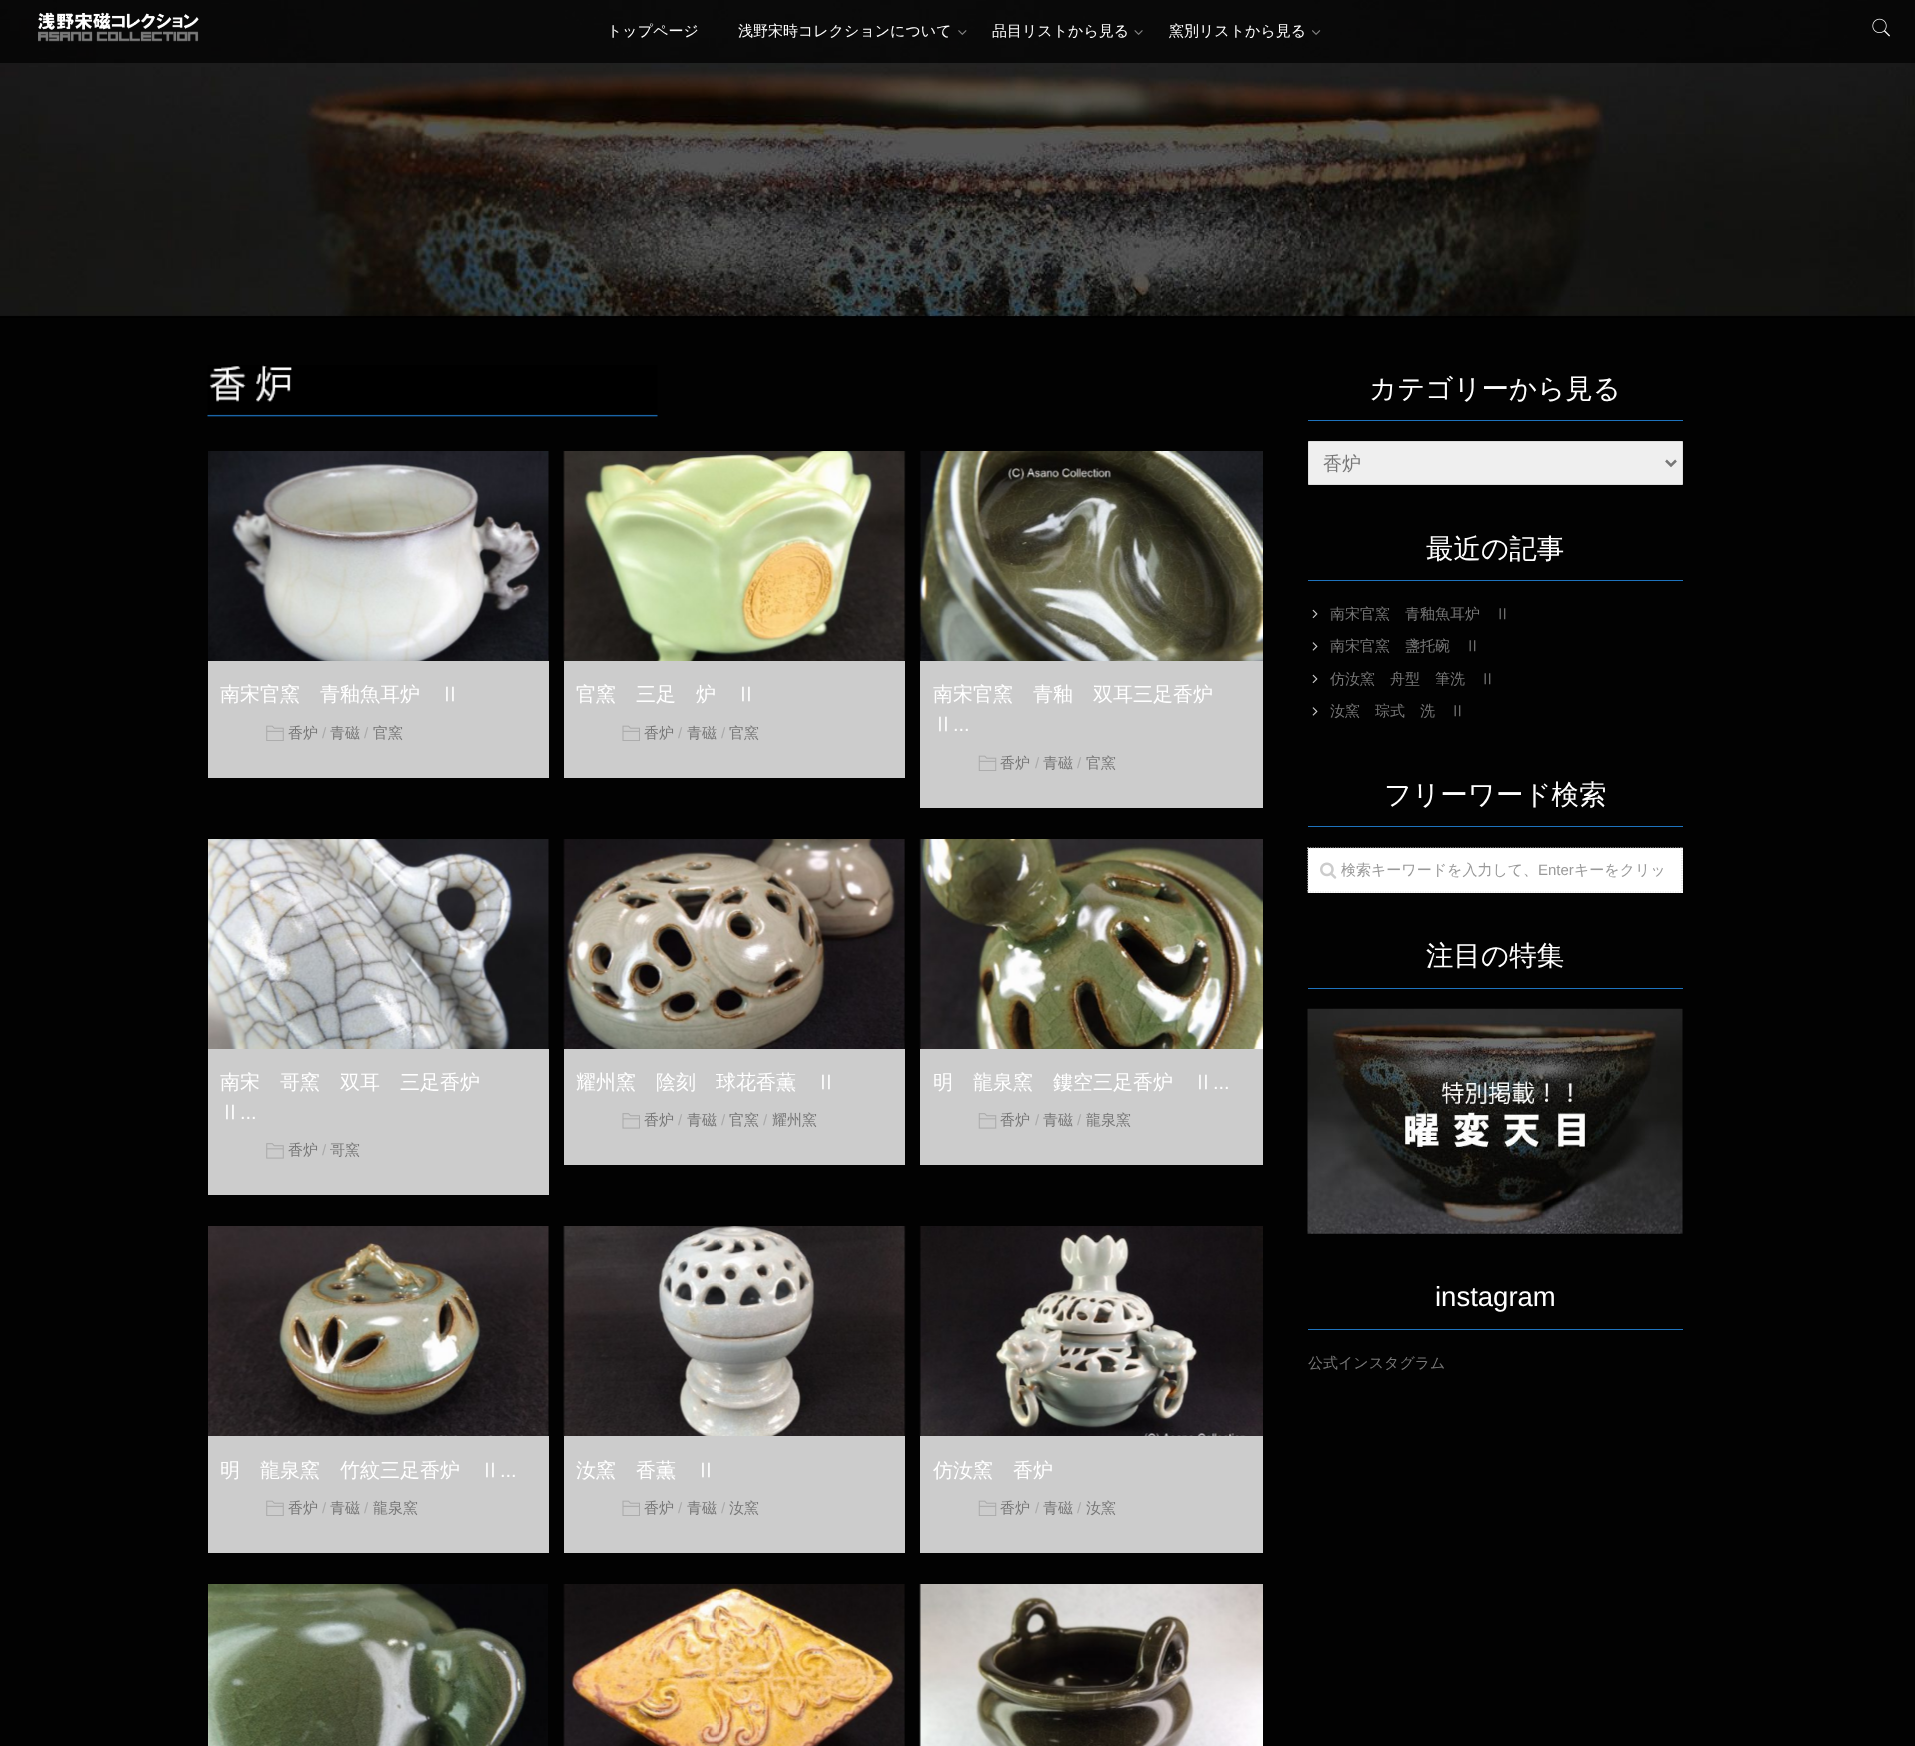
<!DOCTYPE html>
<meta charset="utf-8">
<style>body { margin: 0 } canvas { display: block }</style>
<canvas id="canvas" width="1915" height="1746"></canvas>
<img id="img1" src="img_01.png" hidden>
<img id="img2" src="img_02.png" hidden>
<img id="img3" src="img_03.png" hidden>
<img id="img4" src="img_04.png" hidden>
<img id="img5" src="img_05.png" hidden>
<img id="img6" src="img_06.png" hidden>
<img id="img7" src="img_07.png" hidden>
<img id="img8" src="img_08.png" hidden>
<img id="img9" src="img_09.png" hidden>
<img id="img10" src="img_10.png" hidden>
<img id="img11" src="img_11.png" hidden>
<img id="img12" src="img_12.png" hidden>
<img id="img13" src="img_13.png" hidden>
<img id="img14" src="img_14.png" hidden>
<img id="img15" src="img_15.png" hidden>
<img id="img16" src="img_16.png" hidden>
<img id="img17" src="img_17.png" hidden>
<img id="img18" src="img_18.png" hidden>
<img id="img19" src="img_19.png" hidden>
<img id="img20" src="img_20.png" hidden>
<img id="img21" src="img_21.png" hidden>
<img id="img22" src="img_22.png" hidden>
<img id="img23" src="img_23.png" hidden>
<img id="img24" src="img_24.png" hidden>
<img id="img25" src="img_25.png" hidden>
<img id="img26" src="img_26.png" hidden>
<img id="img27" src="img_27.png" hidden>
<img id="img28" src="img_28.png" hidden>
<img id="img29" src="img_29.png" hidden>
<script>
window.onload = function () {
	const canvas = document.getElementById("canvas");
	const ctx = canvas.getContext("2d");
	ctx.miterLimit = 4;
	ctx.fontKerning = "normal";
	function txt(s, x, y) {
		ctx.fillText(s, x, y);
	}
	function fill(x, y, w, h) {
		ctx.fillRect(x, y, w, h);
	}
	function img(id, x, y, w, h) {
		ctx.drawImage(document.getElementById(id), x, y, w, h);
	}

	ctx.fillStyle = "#020202";
	fill(0, 0, 1915, 1746);
	img("img1", 0, 0, 1915, 318);
	ctx.fillStyle = "rgba(0, 0, 0, 0.7)";
	fill(0, 0, 1915, 63);
	img("img2", 38, 12, 161, 30);
	img("img3", 1872, 18, 18, 19);
	img("img4", 958, 30, 9, 5);
	img("img5", 1134, 30, 9, 5);
	img("img6", 1312, 30, 9, 5);
	img("img7", 207, 365, 451, 52);
	img("img8", 208, 451, 341, 210);
	ctx.fillStyle = "#CCCCCC";
	fill(208, 661, 341, 117);
	img("img9", 266, 725, 18, 16);
	img("img10", 563, 451, 343, 210);
	fill(564, 661, 341, 117);
	img("img11", 622, 725, 18, 16);
	img("img12", 919, 451, 344, 210);
	fill(920, 661, 343, 147);
	img("img13", 978, 755, 19, 16);
	img("img14", 208, 839, 341, 210);
	fill(208, 1049, 341, 146);
	img("img15", 266, 1143, 18, 16);
	img("img16", 563, 839, 342, 210);
	fill(564, 1049, 341, 116);
	img("img17", 622, 1113, 18, 16);
	img("img18", 919, 839, 344, 210);
	fill(920, 1049, 343, 116);
	img("img19", 978, 1113, 19, 16);
	img("img20", 208, 1226, 341, 210);
	fill(208, 1436, 341, 117);
	img("img9", 266, 1500, 18, 16);
	img("img21", 563, 1226, 343, 210);
	fill(564, 1436, 341, 117);
	img("img11", 622, 1500, 18, 16);
	img("img22", 919, 1226, 344, 210);
	fill(920, 1436, 343, 117);
	img("img13", 978, 1500, 19, 16);
	img("img23", 208, 1584, 340, 162);
	img("img24", 563, 1584, 342, 162);
	img("img25", 919, 1584, 344, 162);
	ctx.fillStyle = "#1E73BE";
	fill(1308, 420, 375, 1);
	ctx.fillStyle = "#EFEFEF";
	ctx.beginPath();
	ctx.rect(1308.5, 441.5, 374, 43);
	ctx.fill();
	ctx.strokeStyle = "#DDDDDD";
	ctx.stroke();
	ctx.beginPath();
	ctx.moveTo(1666, 460.5);
	ctx.lineTo(1671, 465.5);
	ctx.lineTo(1676, 460.5);
	ctx.strokeStyle = "#777777";
	ctx.lineWidth = 2.5;
	ctx.stroke();
	ctx.fillStyle = "#1E73BE";
	fill(1308, 580, 375, 1);
	img("img26", 1312, 609, 6, 10);
	img("img27", 1312, 642, 6, 9);
	img("img26", 1312, 674, 6, 10);
	img("img27", 1312, 707, 6, 9);
	fill(1308, 826, 375, 1);
	ctx.fillStyle = "#FFFFFF";
	fill(1308, 848, 375, 45);
	img("img28", 1320, 862, 17, 17);
	ctx.beginPath();
	ctx.moveTo(1307.5, 848);
	ctx.lineTo(1682.5, 848);
	ctx.strokeStyle = "#DDDDDD";
	ctx.lineWidth = 1.2;
	ctx.setLineDash([1.25, 1.25]);
	ctx.stroke();
	ctx.beginPath();
	ctx.moveTo(1682, 847.5);
	ctx.lineTo(1682, 892.5);
	ctx.stroke();
	ctx.beginPath();
	ctx.moveTo(1307.5, 892);
	ctx.lineTo(1682.5, 892);
	ctx.stroke();
	ctx.beginPath();
	ctx.moveTo(1308, 847.5);
	ctx.lineTo(1308, 892.5);
	ctx.stroke();
	ctx.fillStyle = "#1E73BE";
	fill(1308, 988, 375, 1);
	img("img29", 1307, 1008, 376, 226);
	fill(1308, 1329, 375, 1);
	ctx.font = "500 15px WenQuanYi Zen Hei";
	ctx.fillStyle = "#FFFFFF";
	txt("トップページ", 607, 36);
	txt("浅野宋時コレクションについて", 738, 36);
	txt("品目リストから見る", 992, 36);
	txt("窯別リストから見る", 1169, 36);
	ctx.font = "500 20px WenQuanYi Zen Hei";
	txt("南宋官窯　青釉魚耳炉　Ⅱ", 220, 701);
	ctx.font = "500 15px WenQuanYi Zen Hei";
	ctx.fillStyle = "#777777";
	txt("香炉", 288, 738);
	ctx.font = "15px Liberation Sans";
	ctx.fillStyle = "#AAAAAA";
	txt("/", 322, 738);
	ctx.font = "500 15px WenQuanYi Zen Hei";
	ctx.fillStyle = "#777777";
	txt("青磁", 330, 738);
	ctx.font = "15px Liberation Sans";
	ctx.fillStyle = "#AAAAAA";
	txt("/", 364, 738);
	ctx.font = "500 15px WenQuanYi Zen Hei";
	ctx.fillStyle = "#777777";
	txt("官窯", 373, 738);
	ctx.font = "500 20px WenQuanYi Zen Hei";
	ctx.fillStyle = "#FFFFFF";
	txt("官窯　三足　炉　Ⅱ", 576, 701);
	ctx.font = "500 15px WenQuanYi Zen Hei";
	ctx.fillStyle = "#777777";
	txt("香炉", 644, 738);
	ctx.font = "15px Liberation Sans";
	ctx.fillStyle = "#AAAAAA";
	txt("/", 678, 738);
	ctx.font = "500 15px WenQuanYi Zen Hei";
	ctx.fillStyle = "#777777";
	txt("青磁", 687, 738);
	ctx.font = "15px Liberation Sans";
	ctx.fillStyle = "#AAAAAA";
	txt("/", 721, 738);
	ctx.font = "500 15px WenQuanYi Zen Hei";
	ctx.fillStyle = "#777777";
	txt("官窯", 729, 738);
	ctx.font = "500 20px WenQuanYi Zen Hei";
	ctx.fillStyle = "#FFFFFF";
	txt("南宋官窯　青釉　双耳三足香炉", 933, 701);
	txt("Ⅱ", 933, 731);
	ctx.font = "20px Liberation Sans";
	txt("...", 953, 731);
	ctx.font = "500 15px WenQuanYi Zen Hei";
	ctx.fillStyle = "#777777";
	txt("香炉", 1000, 768);
	ctx.font = "15px Liberation Sans";
	ctx.fillStyle = "#AAAAAA";
	txt("/", 1035, 768);
	ctx.font = "500 15px WenQuanYi Zen Hei";
	ctx.fillStyle = "#777777";
	txt("青磁", 1043, 768);
	ctx.font = "15px Liberation Sans";
	ctx.fillStyle = "#AAAAAA";
	txt("/", 1077, 768);
	ctx.font = "500 15px WenQuanYi Zen Hei";
	ctx.fillStyle = "#777777";
	txt("官窯", 1086, 768);
	ctx.font = "500 20px WenQuanYi Zen Hei";
	ctx.fillStyle = "#FFFFFF";
	txt("南宋　哥窯　双耳　三足香炉", 220, 1089);
	txt("Ⅱ", 220, 1119);
	ctx.font = "20px Liberation Sans";
	txt("...", 240, 1119);
	ctx.font = "500 15px WenQuanYi Zen Hei";
	ctx.fillStyle = "#777777";
	txt("香炉", 288, 1155);
	ctx.font = "15px Liberation Sans";
	ctx.fillStyle = "#AAAAAA";
	txt("/", 322, 1155);
	ctx.font = "500 15px WenQuanYi Zen Hei";
	ctx.fillStyle = "#777777";
	txt("哥窯", 330, 1155);
	ctx.font = "500 20px WenQuanYi Zen Hei";
	ctx.fillStyle = "#FFFFFF";
	txt("耀州窯　陰刻　球花香薫　Ⅱ", 576, 1089);
	ctx.font = "500 15px WenQuanYi Zen Hei";
	ctx.fillStyle = "#777777";
	txt("香炉", 644, 1125);
	ctx.font = "15px Liberation Sans";
	ctx.fillStyle = "#AAAAAA";
	txt("/", 678, 1125);
	ctx.font = "500 15px WenQuanYi Zen Hei";
	ctx.fillStyle = "#777777";
	txt("青磁", 687, 1125);
	ctx.font = "15px Liberation Sans";
	ctx.fillStyle = "#AAAAAA";
	txt("/", 721, 1125);
	ctx.font = "500 15px WenQuanYi Zen Hei";
	ctx.fillStyle = "#777777";
	txt("官窯", 729, 1125);
	ctx.font = "15px Liberation Sans";
	ctx.fillStyle = "#AAAAAA";
	txt("/", 763, 1125);
	ctx.font = "500 15px WenQuanYi Zen Hei";
	ctx.fillStyle = "#777777";
	txt("耀州窯", 772, 1125);
	ctx.font = "500 20px WenQuanYi Zen Hei";
	ctx.fillStyle = "#FFFFFF";
	txt("明　龍泉窯　鏤空三足香炉　Ⅱ", 933, 1089);
	ctx.font = "20px Liberation Sans";
	txt("...", 1213, 1089);
	ctx.font = "500 15px WenQuanYi Zen Hei";
	ctx.fillStyle = "#777777";
	txt("香炉", 1000, 1125);
	ctx.font = "15px Liberation Sans";
	ctx.fillStyle = "#AAAAAA";
	txt("/", 1035, 1125);
	ctx.font = "500 15px WenQuanYi Zen Hei";
	ctx.fillStyle = "#777777";
	txt("青磁", 1043, 1125);
	ctx.font = "15px Liberation Sans";
	ctx.fillStyle = "#AAAAAA";
	txt("/", 1077, 1125);
	ctx.font = "500 15px WenQuanYi Zen Hei";
	ctx.fillStyle = "#777777";
	txt("龍泉窯", 1086, 1125);
	ctx.font = "500 20px WenQuanYi Zen Hei";
	ctx.fillStyle = "#FFFFFF";
	txt("明　龍泉窯　竹紋三足香炉　Ⅱ", 220, 1477);
	ctx.font = "20px Liberation Sans";
	txt("...", 500, 1477);
	ctx.font = "500 15px WenQuanYi Zen Hei";
	ctx.fillStyle = "#777777";
	txt("香炉", 288, 1513);
	ctx.font = "15px Liberation Sans";
	ctx.fillStyle = "#AAAAAA";
	txt("/", 322, 1513);
	ctx.font = "500 15px WenQuanYi Zen Hei";
	ctx.fillStyle = "#777777";
	txt("青磁", 330, 1513);
	ctx.font = "15px Liberation Sans";
	ctx.fillStyle = "#AAAAAA";
	txt("/", 364, 1513);
	ctx.font = "500 15px WenQuanYi Zen Hei";
	ctx.fillStyle = "#777777";
	txt("龍泉窯", 373, 1513);
	ctx.font = "500 20px WenQuanYi Zen Hei";
	ctx.fillStyle = "#FFFFFF";
	txt("汝窯　香薫　Ⅱ", 576, 1477);
	ctx.font = "500 15px WenQuanYi Zen Hei";
	ctx.fillStyle = "#777777";
	txt("香炉", 644, 1513);
	ctx.font = "15px Liberation Sans";
	ctx.fillStyle = "#AAAAAA";
	txt("/", 678, 1513);
	ctx.font = "500 15px WenQuanYi Zen Hei";
	ctx.fillStyle = "#777777";
	txt("青磁", 687, 1513);
	ctx.font = "15px Liberation Sans";
	ctx.fillStyle = "#AAAAAA";
	txt("/", 721, 1513);
	ctx.font = "500 15px WenQuanYi Zen Hei";
	ctx.fillStyle = "#777777";
	txt("汝窯", 729, 1513);
	ctx.font = "500 20px WenQuanYi Zen Hei";
	ctx.fillStyle = "#FFFFFF";
	txt("仿汝窯　香炉", 933, 1477);
	ctx.font = "500 15px WenQuanYi Zen Hei";
	ctx.fillStyle = "#777777";
	txt("香炉", 1000, 1513);
	ctx.font = "15px Liberation Sans";
	ctx.fillStyle = "#AAAAAA";
	txt("/", 1035, 1513);
	ctx.font = "500 15px WenQuanYi Zen Hei";
	ctx.fillStyle = "#777777";
	txt("青磁", 1043, 1513);
	ctx.font = "15px Liberation Sans";
	ctx.fillStyle = "#AAAAAA";
	txt("/", 1077, 1513);
	ctx.font = "500 15px WenQuanYi Zen Hei";
	ctx.fillStyle = "#777777";
	txt("汝窯", 1086, 1513);
	ctx.font = "500 27.5px WenQuanYi Zen Hei";
	ctx.fillStyle = "#FFFFFF";
	txt("カテゴリーから見る", 1369, 398);
	ctx.font = "500 19px WenQuanYi Zen Hei";
	ctx.fillStyle = "#777777";
	txt("香炉", 1323, 470);
	ctx.font = "500 27.5px WenQuanYi Zen Hei";
	ctx.fillStyle = "#FFFFFF";
	txt("最近の記事", 1426, 558);
	ctx.font = "500 15px WenQuanYi Zen Hei";
	ctx.fillStyle = "#777777";
	txt("南宋官窯　青釉魚耳炉　Ⅱ", 1330, 619);
	txt("南宋官窯　盞托碗　Ⅱ", 1330, 651);
	txt("仿汝窯　舟型　筆洗　Ⅱ", 1330, 684);
	txt("汝窯　琮式　洗　Ⅱ", 1330, 716);
	ctx.font = "500 27.5px WenQuanYi Zen Hei";
	ctx.fillStyle = "#FFFFFF";
	txt("フリーワード検索", 1384, 804);
	ctx.font = "500 15px WenQuanYi Zen Hei";
	ctx.fillStyle = "#999999";
	txt("検索キーワードを入力して、", 1341, 875);
	ctx.font = "15px Liberation Sans";
	txt("Enter", 1538, 875);
	ctx.font = "500 15px WenQuanYi Zen Hei";
	txt("キーをクリッ", 1574, 875);
	ctx.font = "500 27.5px WenQuanYi Zen Hei";
	ctx.fillStyle = "#FFFFFF";
	txt("注目の特集", 1426, 965);
	ctx.font = "27.5px Liberation Sans";
	txt("instagram", 1435, 1306);
	ctx.font = "500 15px WenQuanYi Zen Hei";
	ctx.fillStyle = "#777777";
	txt("公式インスタグラム", 1308, 1368);
};
</script>
